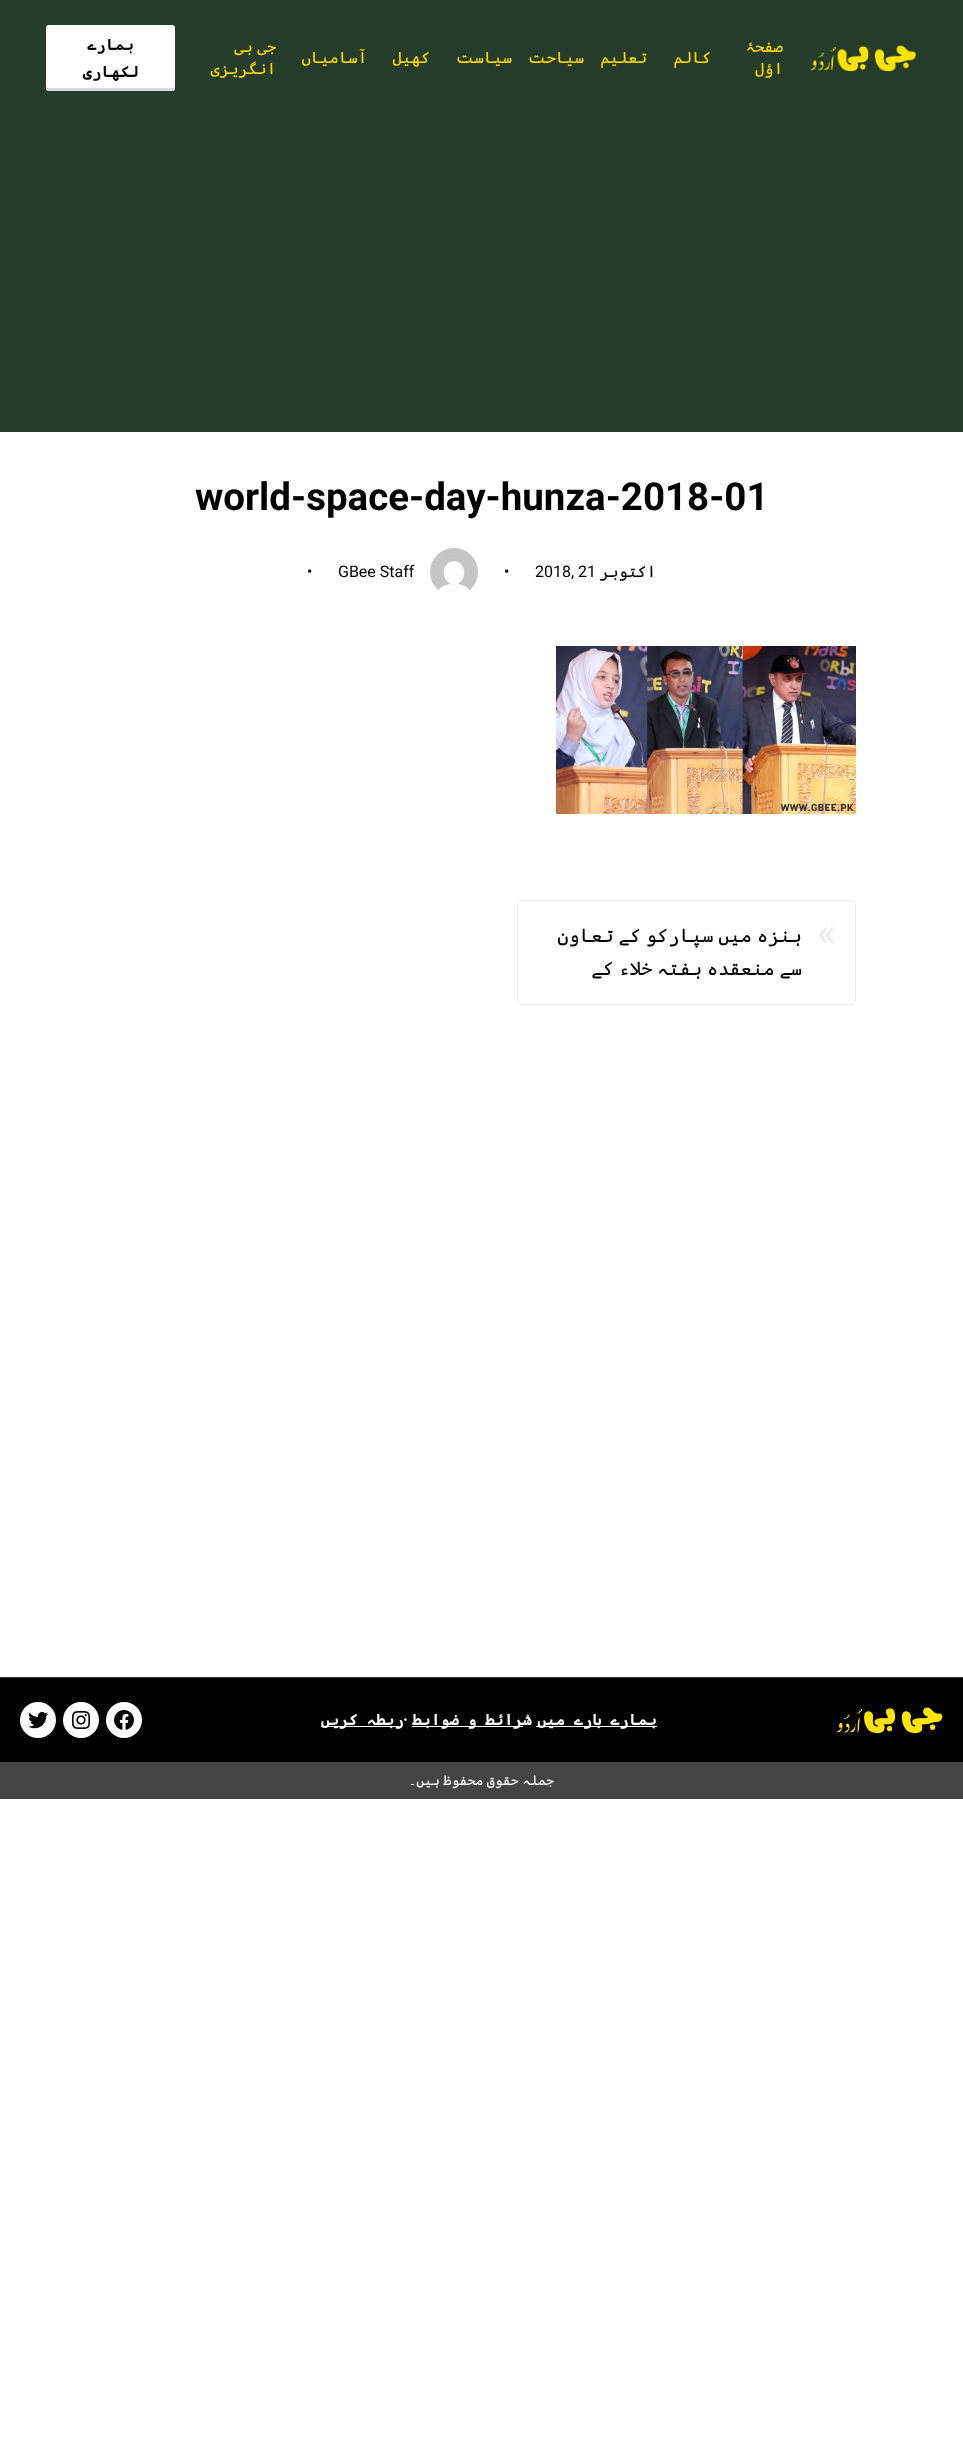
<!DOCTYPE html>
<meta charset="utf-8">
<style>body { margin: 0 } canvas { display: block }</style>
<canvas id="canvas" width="963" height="2439"></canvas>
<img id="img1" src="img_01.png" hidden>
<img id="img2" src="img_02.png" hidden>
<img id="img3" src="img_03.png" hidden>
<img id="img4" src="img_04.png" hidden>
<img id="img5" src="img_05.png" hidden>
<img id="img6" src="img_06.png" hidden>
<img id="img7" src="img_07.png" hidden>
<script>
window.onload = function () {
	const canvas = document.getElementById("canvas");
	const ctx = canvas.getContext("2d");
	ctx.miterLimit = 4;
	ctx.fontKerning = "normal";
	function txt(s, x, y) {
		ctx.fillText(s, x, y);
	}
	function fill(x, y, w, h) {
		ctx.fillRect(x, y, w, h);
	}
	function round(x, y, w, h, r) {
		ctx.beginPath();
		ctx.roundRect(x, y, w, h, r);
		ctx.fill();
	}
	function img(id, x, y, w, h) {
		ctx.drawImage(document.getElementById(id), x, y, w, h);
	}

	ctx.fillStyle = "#FFFFFF";
	fill(0, 0, 963, 2439);
	ctx.fillStyle = "#253D2A";
	fill(0, 0, 963, 432);
	img("img1", 810, 45, 107, 27);
	ctx.fillStyle = "#FFFFFD";
	round(46, 25, 129, 66, 3);
	ctx.fillStyle = "#D6D6E7";
	ctx.beginPath();
	ctx.moveTo(46, 85);
	ctx.lineTo(46, 88);
	ctx.bezierCurveTo(46, 90, 47, 91, 49, 91);
	ctx.lineTo(172, 91);
	ctx.bezierCurveTo(174, 91, 175, 90, 175, 88);
	ctx.lineTo(175, 85);
	ctx.bezierCurveTo(175, 87, 174, 88, 172, 88);
	ctx.lineTo(49, 88);
	ctx.bezierCurveTo(47, 88, 46, 87, 46, 85);
	ctx.closePath();
	ctx.fill();
	img("img2", 430, 548, 48, 45);
	img("img3", 556, 646, 300, 168);
	ctx.beginPath();
	ctx.roundRect(517.5, 900.5, 338, 104, 4.5);
	ctx.strokeStyle = "#EAEAEA";
	ctx.stroke();
	ctx.fillStyle = "#000001";
	fill(0, 1678, 963, 84);
	ctx.fillStyle = "#383839";
	fill(0, 1677, 963, 1);
	img("img4", 836, 1707, 107, 27);
	ctx.fillStyle = "#FFFFFD";
	fill(536, 1726, 121, 1);
	fill(412, 1726, 111, 1);
	fill(321, 1726, 78, 1);
	ctx.fillStyle = "#FFFFFF";
	ctx.beginPath();
	ctx.arc(124, 1720, 18, 0, Math.PI * 2);
	ctx.fill();
	img("img5", 114, 1710, 20, 20);
	ctx.beginPath();
	ctx.arc(81, 1720, 18, 0, Math.PI * 2);
	ctx.fill();
	img("img6", 72, 1711, 18, 18);
	ctx.beginPath();
	ctx.arc(38, 1720, 18, 0, Math.PI * 2);
	ctx.fill();
	img("img7", 28, 1712, 20, 17);
	ctx.fillStyle = "#444444";
	fill(0, 1762, 963, 37);
	ctx.direction = "rtl";
	ctx.font = "16px Cascadia Code";
	ctx.fillStyle = "#FFD800";
	txt("صفحۂ", 783, 52);
	txt("اؤل", 783, 74);
	txt("کالم", 711, 63);
	txt("تعلیم", 647, 63);
	txt("سیاحت", 584, 63);
	txt("سیاست", 512, 63);
	txt("کھیل", 430, 63);
	txt("آسامیاں", 367, 63);
	ctx.wordSpacing = "-5px";
	txt("جی بی", 276, 52);
	ctx.wordSpacing = "0px";
	txt("انگریزی", 276, 74);
	ctx.font = "bold 16px Cascadia Code";
	ctx.fillStyle = "#000001";
	txt("ہمارے", 134, 50);
	txt("لکھاری", 139, 77);
	ctx.direction = "ltr";
	ctx.font = "bold 38.5px Roboto";
	txt("world-space-day-hunza-2018-01", 195, 510);
	ctx.direction = "rtl";
	ctx.font = "16px Cascadia Code";
	txt("اکتوبر", 656, 577);
	ctx.direction = "ltr";
	ctx.font = "16px Roboto";
	txt("2018, 21", 535, 577);
	txt("•", 504, 577);
	txt("GBee Staff", 338, 577);
	txt("•", 307, 577);
	ctx.font = "40px Roboto";
	ctx.fillStyle = "#EAEAEA";
	txt("«", 817, 946);
	ctx.save();
	ctx.beginPath();
	ctx.rect(537, 920, 265, 65);
	ctx.clip();
	ctx.wordSpacing = "-6.5px";
	ctx.direction = "rtl";
	ctx.font = "19.25px Cascadia Code";
	ctx.fillStyle = "#000001";
	txt("ہنزہ میں سپارکو کے تعاون", 802, 942);
	txt("سے منعقدہ ہفتہ خلاء کے", 802, 975);
	ctx.restore();
	ctx.wordSpacing = "-1px";
	ctx.direction = "rtl";
	ctx.font = "bold 16px Cascadia Code";
	ctx.fillStyle = "#FFFFFD";
	txt("ہمارے بارے میں", 657, 1725);
	ctx.wordSpacing = "0px";
	ctx.direction = "ltr";
	ctx.font = "bold 16px Roboto";
	txt("·", 403, 1725);
	ctx.wordSpacing = "-1px";
	ctx.direction = "rtl";
	ctx.font = "bold 16px Cascadia Code";
	txt("ربطہ کریں", 404, 1725);
	ctx.wordSpacing = "0px";
	ctx.direction = "ltr";
	ctx.font = "bold 16px Roboto";
	txt("·", 527, 1725);
	ctx.wordSpacing = "-1px";
	ctx.direction = "rtl";
	ctx.font = "bold 16px Cascadia Code";
	txt("شرائط و ضوابط", 532, 1725);
	ctx.wordSpacing = "-4.5px";
	ctx.font = "13.6px Cascadia Code";
	txt("جملہ حقوق محفوظ ہیں۔", 554, 1785);
};
</script>
